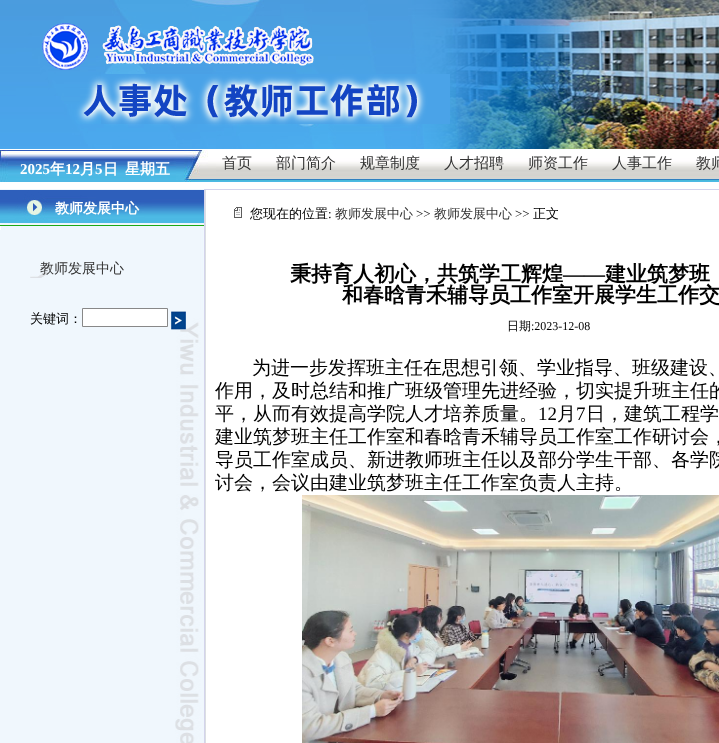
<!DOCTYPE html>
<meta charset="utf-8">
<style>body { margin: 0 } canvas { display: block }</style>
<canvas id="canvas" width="719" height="743"></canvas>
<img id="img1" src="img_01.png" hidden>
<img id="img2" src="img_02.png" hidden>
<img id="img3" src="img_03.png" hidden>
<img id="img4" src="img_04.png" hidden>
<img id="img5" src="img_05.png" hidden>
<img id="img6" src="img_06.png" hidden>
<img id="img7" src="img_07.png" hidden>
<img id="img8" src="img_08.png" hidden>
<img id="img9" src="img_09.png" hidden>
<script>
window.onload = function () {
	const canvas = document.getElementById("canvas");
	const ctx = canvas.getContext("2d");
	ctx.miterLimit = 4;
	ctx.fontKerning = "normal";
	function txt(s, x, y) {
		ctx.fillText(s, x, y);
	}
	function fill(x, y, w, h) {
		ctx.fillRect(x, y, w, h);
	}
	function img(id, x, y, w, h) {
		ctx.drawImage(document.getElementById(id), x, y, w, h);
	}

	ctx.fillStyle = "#FFFFFF";
	fill(0, 0, 719, 743);
	img("img1", 0, 0, 719, 149);
	img("img2", 0, 150, 719, 32);
	img("img3", 0, 189, 719, 554);
	img("img4", 175, 310, 29, 433);
	img("img5", 0, 190, 204, 40);
	img("img6", 30, 270, 18, 8);
	ctx.beginPath();
	ctx.rect(82.5, 308.5, 85, 18);
	ctx.fill();
	ctx.strokeStyle = "#888888";
	ctx.stroke();
	img("img7", 171, 311, 15, 19);
	img("img8", 234, 207, 8, 11);
	img("img9", 302, 495, 417, 248);
	ctx.font = "bold 15px Liberation Serif";
	txt("2025", 20, 174);
	ctx.font = "bold 15px WenQuanYi Zen Hei";
	txt("年", 50, 174);
	ctx.font = "bold 15px Liberation Serif";
	txt("12", 65, 174);
	ctx.font = "bold 15px WenQuanYi Zen Hei";
	txt("月", 80, 174);
	ctx.font = "bold 15px Liberation Serif";
	txt("5", 95, 174);
	ctx.font = "bold 15px WenQuanYi Zen Hei";
	txt("日", 103, 174);
	txt("星期五", 125, 174);
	ctx.font = "500 15px WenQuanYi Zen Hei";
	ctx.fillStyle = "#333333";
	txt("首页", 222, 168);
	txt("部门简介", 276, 168);
	txt("规章制度", 360, 168);
	txt("人才招聘", 444, 168);
	txt("师资工作", 528, 168);
	txt("人事工作", 612, 168);
	txt("教师", 696, 168);
	ctx.font = "bold 14px WenQuanYi Zen Hei";
	ctx.fillStyle = "#FFFFFF";
	txt("教师发展中心", 55, 213);
	ctx.font = "500 14px WenQuanYi Zen Hei";
	ctx.fillStyle = "#333333";
	txt("教师发展中心", 40, 273);
	ctx.font = "500 13px WenQuanYi Zen Hei";
	ctx.fillStyle = "#000000";
	txt("关键词：", 30, 323);
	txt("您现在的位置", 250, 218);
	ctx.font = "13px Liberation Serif";
	txt(":", 328, 218);
	ctx.font = "500 13px WenQuanYi Zen Hei";
	ctx.fillStyle = "#333333";
	txt("教师发展中心", 335, 218);
	ctx.font = "13px Liberation Serif";
	ctx.fillStyle = "#000000";
	txt(">>", 416, 218);
	ctx.font = "500 13px WenQuanYi Zen Hei";
	ctx.fillStyle = "#333333";
	txt("教师发展中心", 434, 218);
	ctx.font = "13px Liberation Serif";
	ctx.fillStyle = "#000000";
	txt(">>", 515, 218);
	ctx.font = "500 13px WenQuanYi Zen Hei";
	txt("正文", 533, 218);
	ctx.font = "bold 21px WenQuanYi Zen Hei";
	txt("秉持育人初心，共筑学工辉煌", 290, 281);
	ctx.font = "bold 21px Liberation Serif";
	txt("——", 563, 281);
	ctx.font = "bold 21px WenQuanYi Zen Hei";
	txt("建业筑梦班", 605, 281);
	txt("和春晗青禾辅导员工作室开展学生工作交", 342, 302);
	ctx.font = "500 12px WenQuanYi Zen Hei";
	txt("日期", 507, 330);
	ctx.font = "12px Liberation Serif";
	txt(":2023-12-08", 531, 330);
	ctx.font = "500 19px WenQuanYi Zen Hei";
	txt("为进一步发挥班主任在思想引领、学业指导、班级建设、", 252, 374);
	txt("作用，及时总结和推广班级管理先进经验，切实提升班主任的", 215, 397);
	txt("平，从而有效提高学院人才培养质量。", 215, 420);
	ctx.font = "19px Liberation Serif";
	txt("12", 538, 420);
	ctx.font = "500 19px WenQuanYi Zen Hei";
	txt("月", 557, 420);
	ctx.font = "19px Liberation Serif";
	txt("7", 576, 420);
	ctx.font = "500 19px WenQuanYi Zen Hei";
	txt("日，建筑工程学", 586, 420);
	txt("建业筑梦班主任工作室和春晗青禾辅导员工作室工作研讨会，", 215, 443);
	txt("导员工作室成员、新进教师班主任以及部分学生干部、各学院", 215, 466);
	txt("讨会，会议由建业筑梦班主任工作室负责人主持。", 215, 489);
};
</script>
